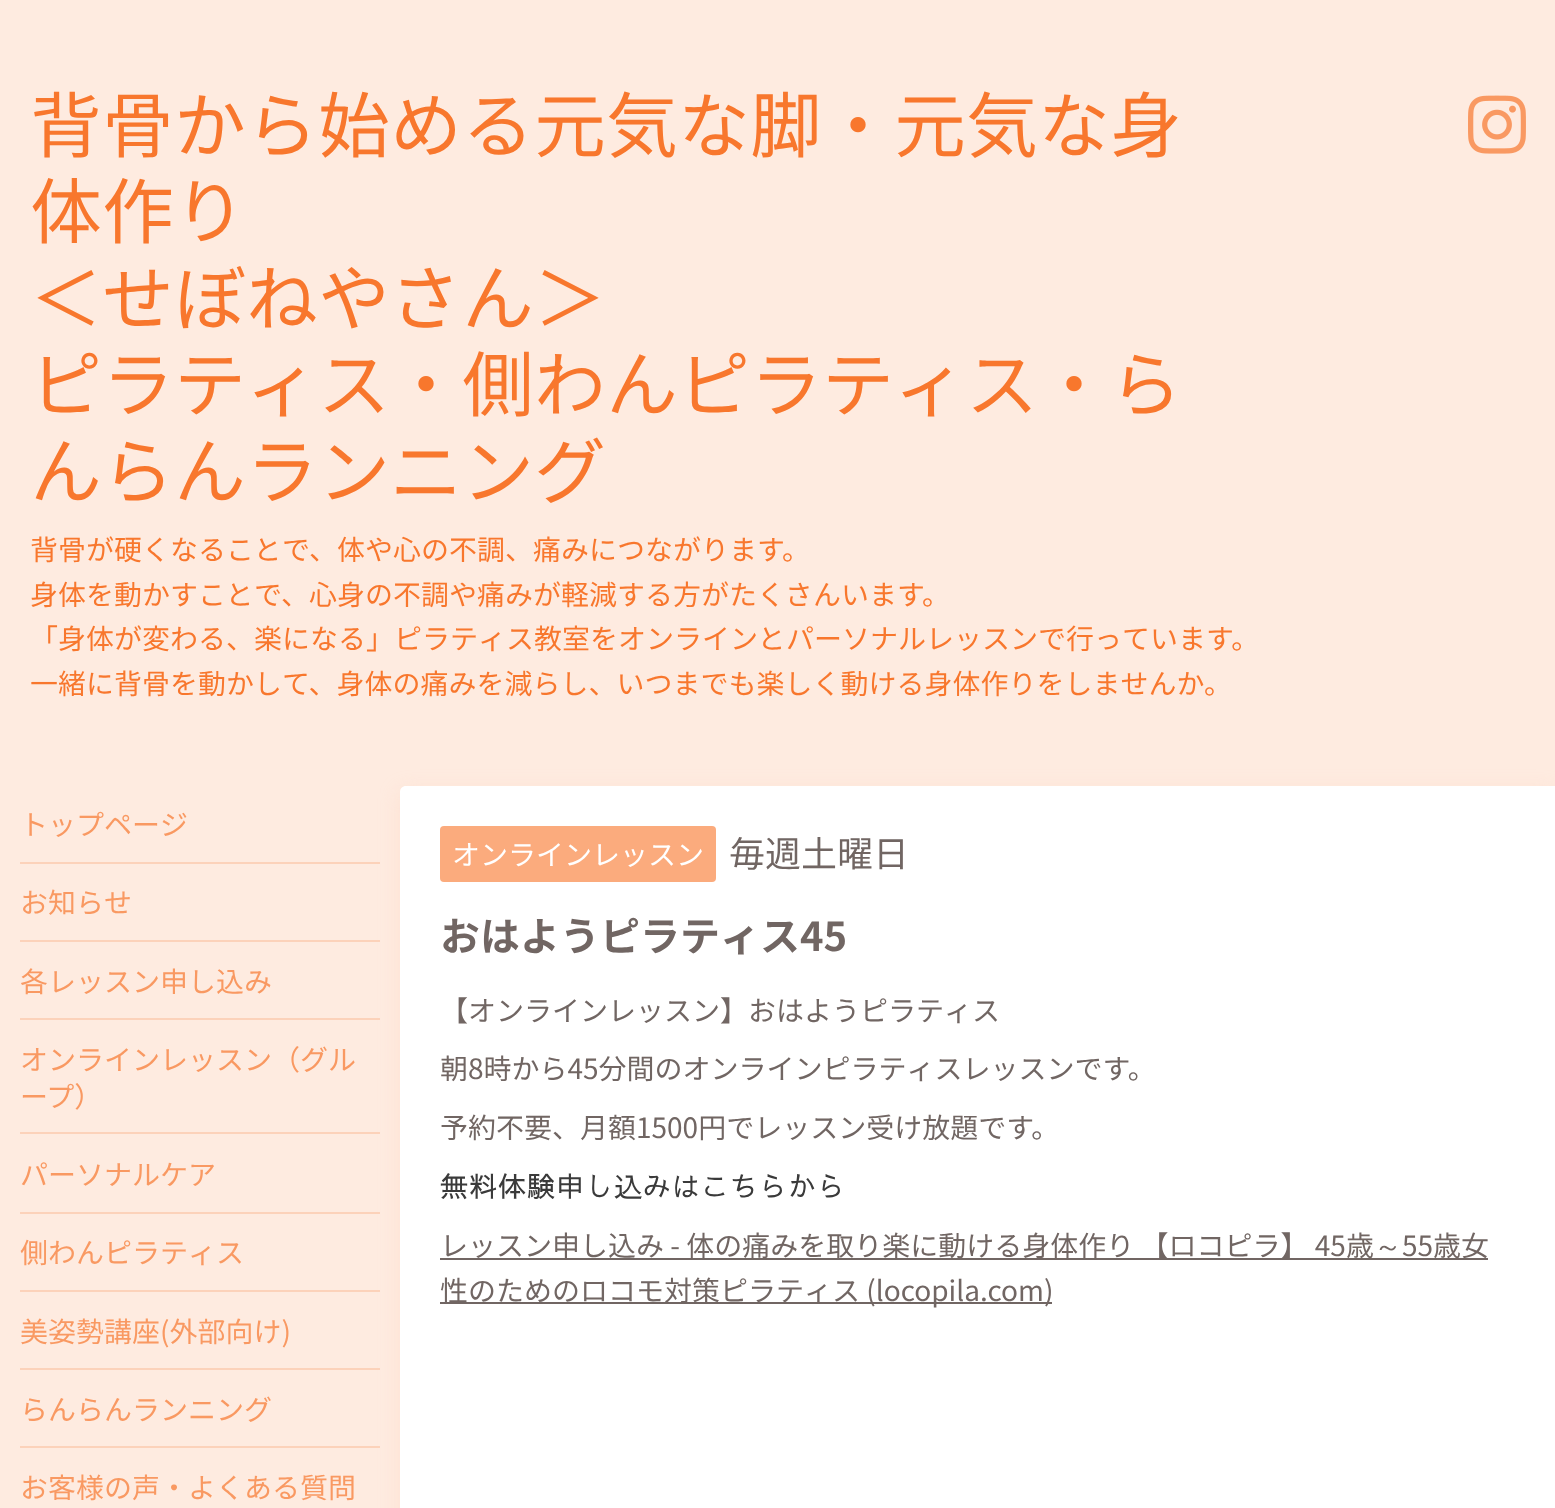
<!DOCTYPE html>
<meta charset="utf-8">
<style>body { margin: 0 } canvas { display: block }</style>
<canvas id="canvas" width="1555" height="1508"></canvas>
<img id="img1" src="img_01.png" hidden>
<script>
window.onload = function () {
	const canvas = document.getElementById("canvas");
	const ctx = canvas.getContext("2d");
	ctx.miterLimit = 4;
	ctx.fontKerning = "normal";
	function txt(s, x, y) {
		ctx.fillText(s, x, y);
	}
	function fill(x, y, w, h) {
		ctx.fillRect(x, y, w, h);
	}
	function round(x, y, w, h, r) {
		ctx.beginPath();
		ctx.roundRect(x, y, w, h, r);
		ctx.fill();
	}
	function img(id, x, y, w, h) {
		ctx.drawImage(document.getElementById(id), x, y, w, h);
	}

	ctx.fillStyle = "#FEEBE0";
	fill(0, 0, 1555, 1508);
	img("img1", 1468, 95, 58, 59);
	ctx.fillStyle = "rgba(253, 209, 184, 0.4)";
	ctx.filter = "blur(10px)";
	ctx.beginPath();
	ctx.roundRect(400, 792, 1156, 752, 6);
	ctx.fill();
	ctx.filter = "none";
	ctx.fillStyle = "#FCD2BA";
	fill(20, 862, 360, 2);
	fill(20, 940, 360, 2);
	fill(20, 1018, 360, 2);
	fill(20, 1132, 360, 2);
	fill(20, 1212, 360, 2);
	fill(20, 1290, 360, 2);
	fill(20, 1368, 360, 2);
	fill(20, 1446, 360, 2);
	ctx.fillStyle = "#FFFFFF";
	ctx.beginPath();
	ctx.moveTo(406, 786);
	ctx.lineTo(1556, 786);
	ctx.lineTo(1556, 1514);
	ctx.lineTo(406, 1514);
	ctx.bezierCurveTo(402.5, 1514, 400, 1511.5, 400, 1508);
	ctx.lineTo(400, 792);
	ctx.bezierCurveTo(400, 788.5, 402.5, 786, 406, 786);
	ctx.closePath();
	ctx.fill();
	ctx.fillStyle = "#FBAB7D";
	round(440, 826, 276, 56, 4);
	ctx.fillStyle = "#716663";
	fill(440, 1258, 1048, 2);
	fill(440, 1302, 612, 2);
	ctx.font = "72px Noto Sans JP";
	ctx.fillStyle = "#F8772D";
	txt("背骨から始める元気な脚・元気な身", 30, 152);
	txt("体作り", 30, 238);
	txt("＜せぼねやさん＞", 30, 325);
	txt("ピラティス・側わんピラティス・ら", 30, 411);
	txt("んらんランニング", 30, 498);
	ctx.font = "28px Noto Sans JP";
	txt("背骨が硬くなることで、体や心の不調、痛みにつながります。", 30, 560);
	txt("身体を動かすことで、心身の不調や痛みが軽減する方がたくさんいます。", 30, 605);
	txt("「身体が変わる、楽になる」ピラティス教室をオンラインとパーソナルレッスンで行っています。", 30, 649);
	txt("一緒に背骨を動かして、身体の痛みを減らし、いつまでも楽しく動ける身体作りをしませんか。", 30, 694);
	ctx.fillStyle = "#F99962";
	txt("トップページ", 20, 835);
	txt("お知らせ", 20, 913);
	txt("各レッスン申し込み", 20, 992);
	txt("オンラインレッスン（グル", 20, 1070);
	txt("ープ）", 20, 1107);
	txt("パーソナルケア", 20, 1185);
	txt("側わんピラティス", 20, 1263);
	txt("美姿勢講座(外部向け)", 20, 1342);
	txt("らんらんランニング", 20, 1420);
	txt("お客様の声・よくある質問", 20, 1498);
	ctx.fillStyle = "#FFFFFF";
	txt("オンラインレッスン", 452, 865);
	ctx.font = "36px Noto Sans JP";
	ctx.fillStyle = "#716663";
	txt("毎週土曜日", 729, 867);
	ctx.font = "bold 40px Noto Sans JP";
	txt("おはようピラティス45", 440, 951);
	ctx.font = "28px Noto Sans JP";
	txt("【オンラインレッスン】おはようピラティス", 440, 1021);
	txt("朝8時から45分間のオンラインピラティスレッスンです。", 440, 1079);
	txt("予約不要、月額1500円でレッスン受け放題です。", 440, 1138);
	ctx.letterSpacing = "1px";
	ctx.font = "28px Sawarabi Gothic";
	ctx.fillStyle = "#3A3A3A";
	txt("無料体験申し込みはこちらから", 440, 1197);
	ctx.letterSpacing = "0px";
	ctx.font = "28px Noto Sans JP";
	ctx.fillStyle = "#716663";
	txt("レッスン申し込み - 体の痛みを取り楽に動ける身体作り 【ロコピラ】 45歳", 440, 1256);
	ctx.font = "500 28px WenQuanYi Zen Hei";
	txt("～", 1374, 1256);
	ctx.font = "28px Noto Sans JP";
	txt("55歳女", 1402, 1256);
	txt("性のためのロコモ対策ピラティス (locopila.com)", 440, 1301);
};
</script>
